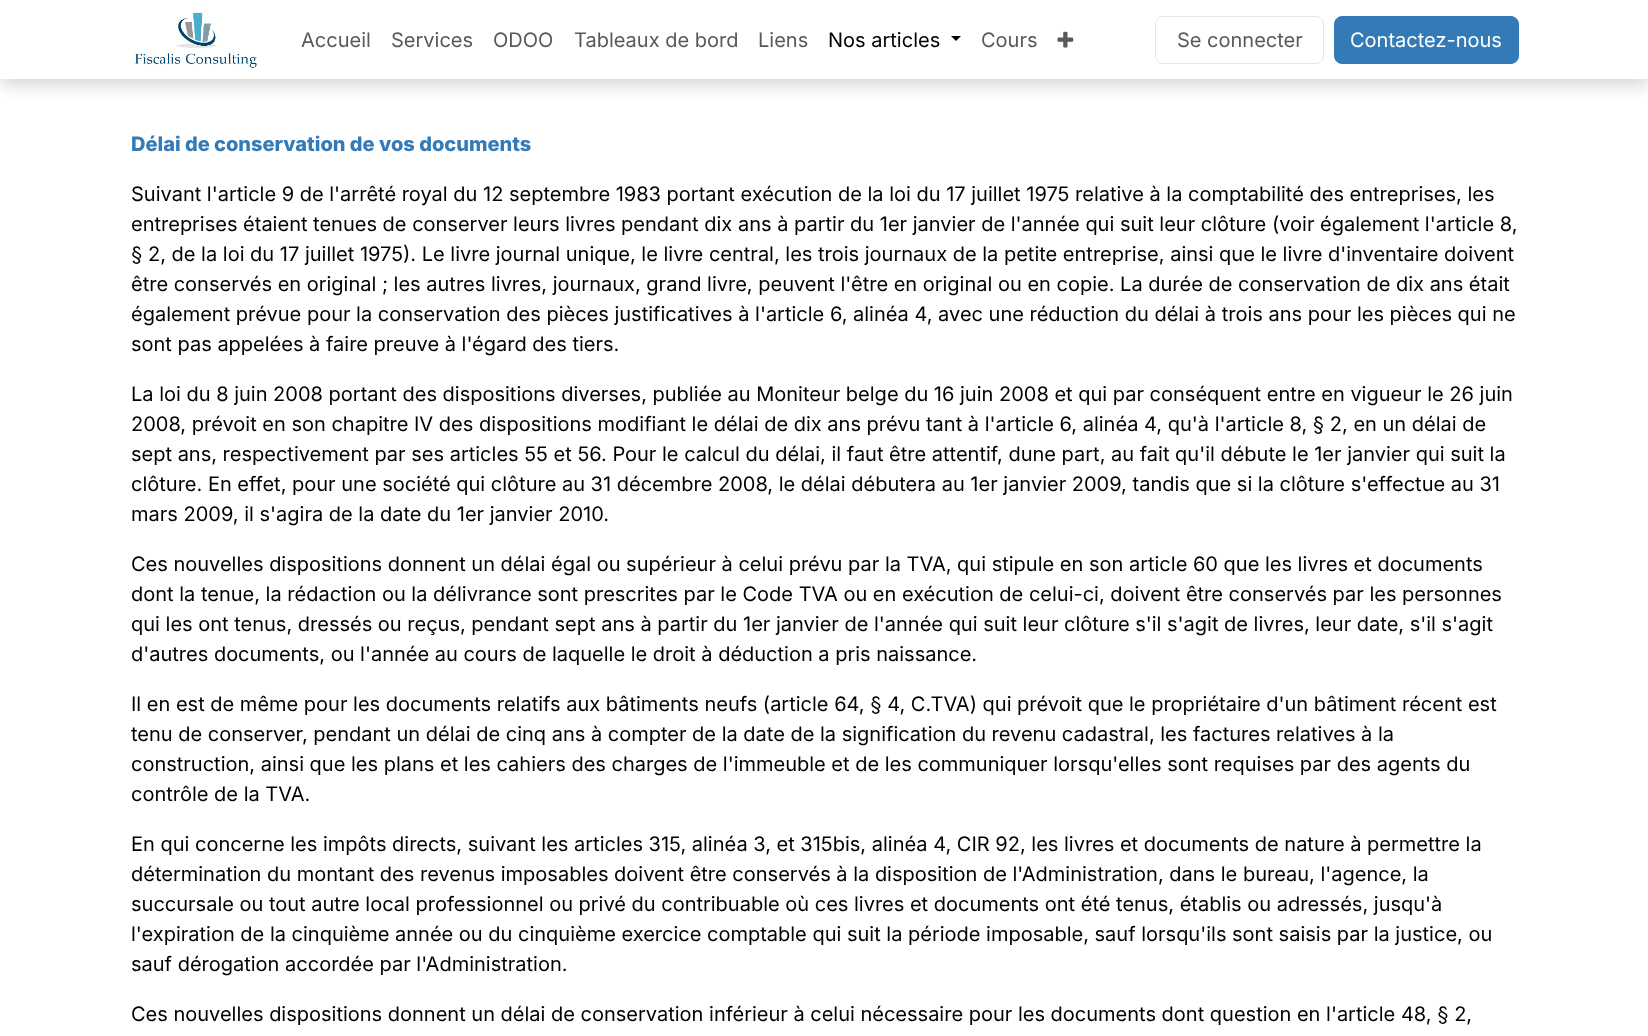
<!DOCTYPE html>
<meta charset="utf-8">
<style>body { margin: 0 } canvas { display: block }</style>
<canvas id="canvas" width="1648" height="1036"></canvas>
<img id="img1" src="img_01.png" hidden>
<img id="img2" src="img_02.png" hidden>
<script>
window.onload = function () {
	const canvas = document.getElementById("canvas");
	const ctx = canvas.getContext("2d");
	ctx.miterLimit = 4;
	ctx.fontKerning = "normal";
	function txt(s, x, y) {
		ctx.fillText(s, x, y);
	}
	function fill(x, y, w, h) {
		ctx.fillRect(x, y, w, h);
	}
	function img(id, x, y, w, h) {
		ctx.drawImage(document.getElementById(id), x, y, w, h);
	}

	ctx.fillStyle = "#FFFFFF";
	fill(0, 0, 1648, 1036);
	ctx.fillStyle = "rgba(0, 0, 0, 0.15)";
	ctx.filter = "blur(7.5px)";
	ctx.beginPath();
	ctx.rect(0, 8, 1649, 78);
	ctx.fill();
	ctx.filter = "none";
	ctx.fillStyle = "#FFFFFF";
	fill(0, 0, 1648, 79);
	img("img1", 135, 12, 122, 56);
	ctx.fillStyle = "#000000";
	ctx.beginPath();
	ctx.moveTo(951, 36);
	ctx.lineTo(961, 36);
	ctx.lineTo(956, 41);
	ctx.closePath();
	ctx.fill();
	img("img2", 1057, 31, 17, 17);
	ctx.beginPath();
	ctx.roundRect(1155.5, 16.5, 168, 47, 7.5);
	ctx.strokeStyle = "#E6E6E6";
	ctx.stroke();
	ctx.fillStyle = "#337AB7";
	ctx.beginPath();
	ctx.roundRect(1334.5, 16.5, 184, 47, 7.5);
	ctx.fill();
	ctx.strokeStyle = "#337AB7";
	ctx.stroke();
	ctx.font = "20px Inter";
	ctx.fillStyle = "#595959";
	txt("Accueil", 301, 47);
	txt("Services", 391, 47);
	txt("ODOO", 493, 47);
	txt("Tableaux de bord", 574, 47);
	txt("Liens", 758, 47);
	ctx.fillStyle = "#000000";
	txt("Nos articles", 828, 47);
	ctx.fillStyle = "#595959";
	txt("Cours", 981, 47);
	txt("Se connecter", 1177, 47);
	ctx.fillStyle = "#FFFFFF";
	txt("Contactez-nous", 1350, 47);
	ctx.font = "800 20px Inter";
	ctx.fillStyle = "#337AB7";
	txt("Délai de conservation de vos documents", 131, 151);
	ctx.font = "20px Inter";
	ctx.fillStyle = "#000000";
	txt("Suivant l'article 9 de l'arrêté royal du 12 septembre 1983 portant exécution de la loi du 17 juillet 1975 relative à la comptabilité des entreprises, les", 131, 201);
	txt("entreprises étaient tenues de conserver leurs livres pendant dix ans à partir du 1er janvier de l'année qui suit leur clôture (voir également l'article 8,", 131, 231);
	txt("§ 2, de la loi du 17 juillet 1975). Le livre journal unique, le livre central, les trois journaux de la petite entreprise, ainsi que le livre d'inventaire doivent", 131, 261);
	txt("être conservés en original ; les autres livres, journaux, grand livre, peuvent l'être en original ou en copie. La durée de conservation de dix ans était", 131, 291);
	txt("également prévue pour la conservation des pièces justificatives à l'article 6, alinéa 4, avec une réduction du délai à trois ans pour les pièces qui ne", 131, 321);
	txt("sont pas appelées à faire preuve à l'égard des tiers.", 131, 351);
	txt("La loi du 8 juin 2008 portant des dispositions diverses, publiée au Moniteur belge du 16 juin 2008 et qui par conséquent entre en vigueur le 26 juin", 131, 401);
	txt("2008, prévoit en son chapitre IV des dispositions modifiant le délai de dix ans prévu tant à l'article 6, alinéa 4, qu'à l'article 8, § 2, en un délai de", 131, 431);
	txt("sept ans, respectivement par ses articles 55 et 56. Pour le calcul du délai, il faut être attentif, dune part, au fait qu'il débute le 1er janvier qui suit la", 131, 461);
	txt("clôture. En effet, pour une société qui clôture au 31 décembre 2008, le délai débutera au 1er janvier 2009, tandis que si la clôture s'effectue au 31", 131, 491);
	txt("mars 2009, il s'agira de la date du 1er janvier 2010.", 131, 521);
	txt("Ces nouvelles dispositions donnent un délai égal ou supérieur à celui prévu par la TVA, qui stipule en son article 60 que les livres et documents", 131, 571);
	txt("dont la tenue, la rédaction ou la délivrance sont prescrites par le Code TVA ou en exécution de celui-ci, doivent être conservés par les personnes", 131, 601);
	txt("qui les ont tenus, dressés ou reçus, pendant sept ans à partir du 1er janvier de l'année qui suit leur clôture s'il s'agit de livres, leur date, s'il s'agit", 131, 631);
	txt("d'autres documents, ou l'année au cours de laquelle le droit à déduction a pris naissance.", 131, 661);
	txt("Il en est de même pour les documents relatifs aux bâtiments neufs (article 64, § 4, C.TVA) qui prévoit que le propriétaire d'un bâtiment récent est", 131, 711);
	txt("tenu de conserver, pendant un délai de cinq ans à compter de la date de la signification du revenu cadastral, les factures relatives à la", 131, 741);
	txt("construction, ainsi que les plans et les cahiers des charges de l'immeuble et de les communiquer lorsqu'elles sont requises par des agents du", 131, 771);
	txt("contrôle de la TVA.", 131, 801);
	txt("En qui concerne les impôts directs, suivant les articles 315, alinéa 3, et 315bis, alinéa 4, CIR 92, les livres et documents de nature à permettre la", 131, 851);
	txt("détermination du montant des revenus imposables doivent être conservés à la disposition de l'Administration, dans le bureau, l'agence, la", 131, 881);
	txt("succursale ou tout autre local professionnel ou privé du contribuable où ces livres et documents ont été tenus, établis ou adressés, jusqu'à", 131, 911);
	txt("l'expiration de la cinquième année ou du cinquième exercice comptable qui suit la période imposable, sauf lorsqu'ils sont saisis par la justice, ou", 131, 941);
	txt("sauf dérogation accordée par l'Administration.", 131, 971);
	txt("Ces nouvelles dispositions donnent un délai de conservation inférieur à celui nécessaire pour les documents dont question en l'article 48, § 2,", 131, 1021);
};
</script>
